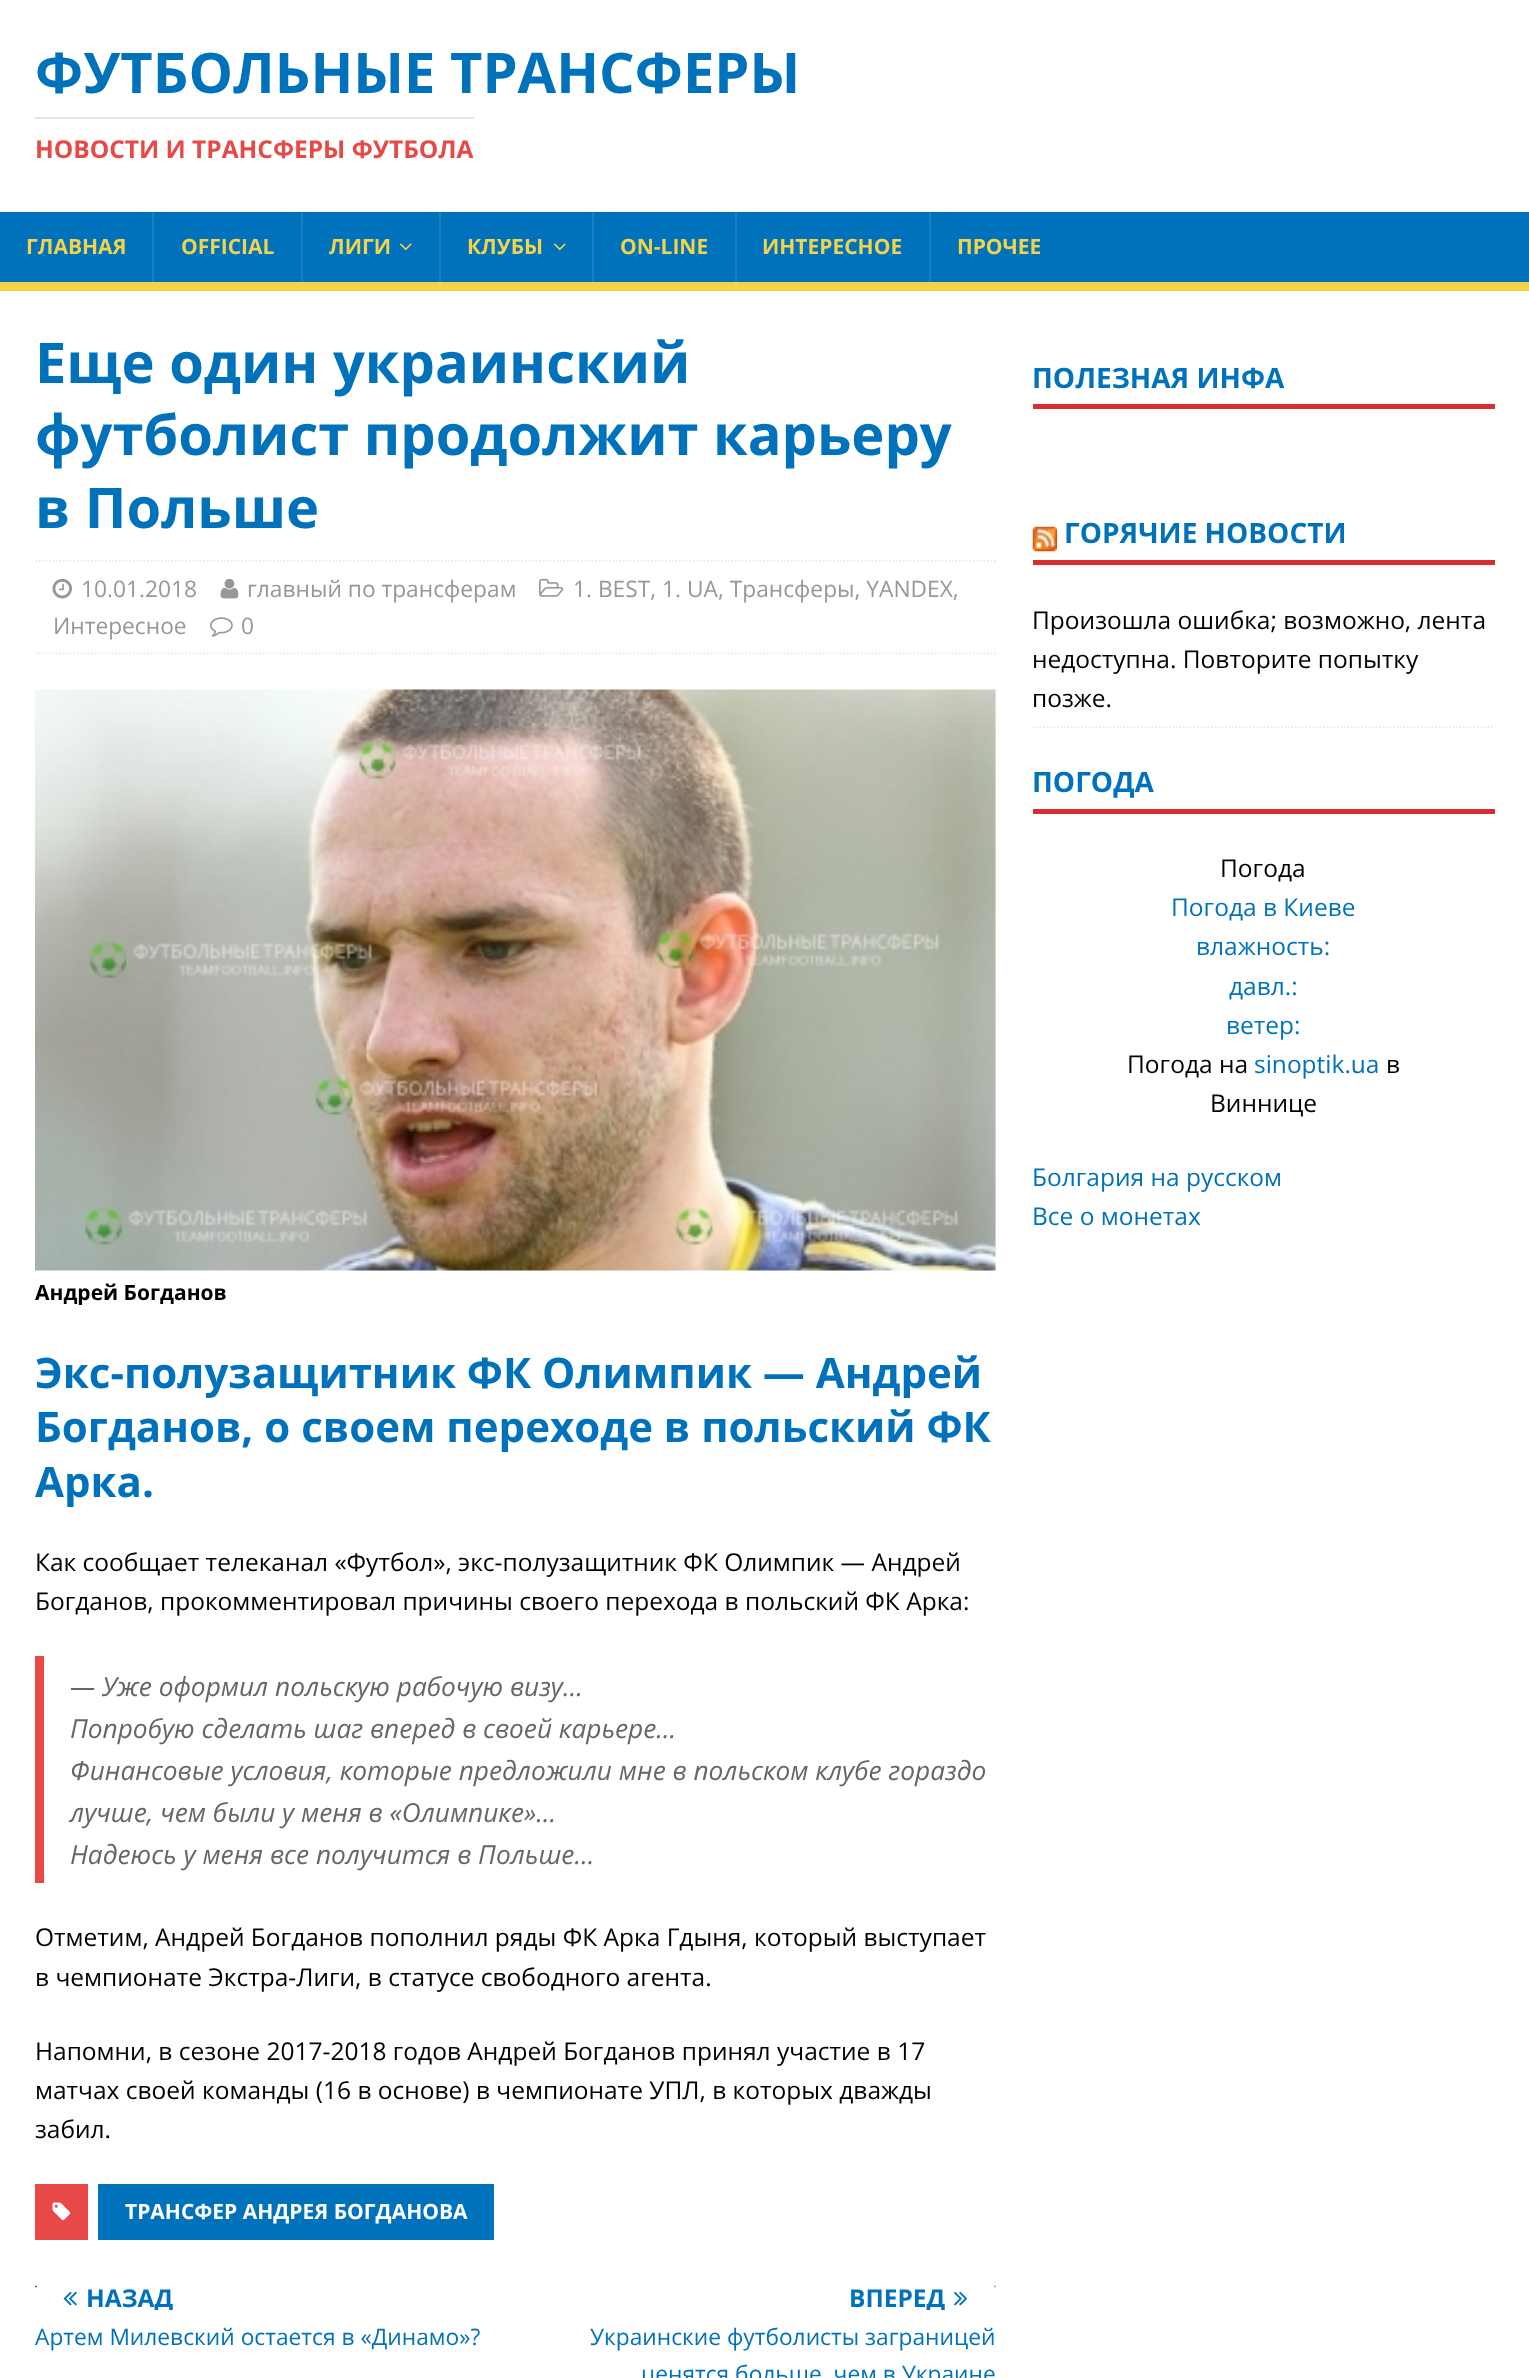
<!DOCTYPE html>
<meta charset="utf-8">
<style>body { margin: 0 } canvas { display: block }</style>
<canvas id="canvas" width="1529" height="2378"></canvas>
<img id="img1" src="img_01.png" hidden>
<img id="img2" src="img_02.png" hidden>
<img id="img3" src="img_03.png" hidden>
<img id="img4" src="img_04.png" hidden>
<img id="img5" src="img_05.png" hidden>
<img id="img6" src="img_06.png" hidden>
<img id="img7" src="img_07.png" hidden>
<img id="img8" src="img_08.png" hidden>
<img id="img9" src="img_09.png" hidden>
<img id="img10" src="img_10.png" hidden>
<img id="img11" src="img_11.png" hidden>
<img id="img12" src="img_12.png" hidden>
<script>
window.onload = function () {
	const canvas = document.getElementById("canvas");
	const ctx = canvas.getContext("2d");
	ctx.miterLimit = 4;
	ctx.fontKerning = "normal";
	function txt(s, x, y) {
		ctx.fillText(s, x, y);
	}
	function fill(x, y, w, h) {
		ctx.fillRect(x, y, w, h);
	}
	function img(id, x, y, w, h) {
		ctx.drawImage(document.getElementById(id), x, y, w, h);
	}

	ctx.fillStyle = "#FFFFFF";
	fill(0, 0, 1529, 2378);
	ctx.fillStyle = "#E5E5E5";
	fill(35, 117, 439, 2);
	ctx.fillStyle = "#0072BC";
	fill(0, 212, 1529, 70);
	ctx.fillStyle = "#F2D34A";
	fill(0, 282, 1529, 9);
	ctx.fillStyle = "#1A80C3";
	fill(152, 212, 2, 70);
	fill(301, 212, 2, 70);
	img("img1", 399, 243, 13, 8);
	fill(439, 212, 2, 70);
	img("img1", 553, 243, 13, 8);
	fill(592, 212, 2, 70);
	fill(735, 212, 2, 70);
	fill(929, 212, 2, 70);
	ctx.beginPath();
	ctx.moveTo(35, 561);
	ctx.lineTo(996, 561);
	ctx.strokeStyle = "#EBEBEB";
	ctx.lineWidth = 1.8;
	ctx.setLineDash([1.75, 1.75]);
	ctx.stroke();
	ctx.beginPath();
	ctx.moveTo(35, 653.5);
	ctx.lineTo(996, 653.5);
	ctx.stroke();
	img("img2", 539, 578, 25, 19);
	img("img3", 52, 578, 20, 21);
	img("img4", 220, 578, 19, 21);
	img("img5", 210, 617, 23, 20);
	img("img6", 35, 689, 961, 582);
	ctx.fillStyle = "#E64946";
	fill(35, 1656, 9, 227);
	fill(35, 2184, 53, 56);
	img("img7", 52, 2202, 19, 19);
	ctx.fillStyle = "#0072BC";
	fill(98, 2184, 396, 56);
	img("img8", 35, 2285, 2, 3);
	img("img9", 63, 2291, 14, 15);
	img("img10", 994, 2285, 2, 3);
	img("img11", 954, 2291, 14, 15);
	ctx.fillStyle = "#D72E34";
	fill(1033, 404, 462, 5);
	fill(1033, 560, 462, 5);
	img("img12", 1032, 526, 25, 26);
	ctx.beginPath();
	ctx.moveTo(1032.5, 727);
	ctx.lineTo(1494.5, 727);
	ctx.stroke();
	fill(1033, 809, 462, 5);
	ctx.font = "bold 56px Open Sans";
	ctx.fillStyle = "#0072BC";
	txt("ФУТБОЛЬНЫЕ ТРАНСФЕРЫ", 35, 93);
	ctx.font = "bold 24.5px Open Sans";
	ctx.fillStyle = "#E64946";
	txt("НОВОСТИ И ТРАНСФЕРЫ ФУТБОЛА", 35, 158);
	ctx.font = "bold 21px Open Sans";
	ctx.fillStyle = "#F2D34A";
	txt("ГЛАВНАЯ", 26, 254);
	txt("OFFICIAL", 181, 254);
	txt("ЛИГИ", 329, 254);
	txt("КЛУБЫ", 467, 254);
	txt("ON-LINE", 620, 254);
	txt("ИНТЕРЕСНОЕ", 762, 254);
	txt("ПРОЧЕЕ", 957, 254);
	ctx.font = "bold 56px Open Sans";
	ctx.fillStyle = "#0072BC";
	txt("Еще один украинский", 35, 383);
	txt("футболист продолжит карьеру", 35, 455);
	txt("в Польше", 35, 528);
	ctx.font = "22.75px Open Sans";
	ctx.fillStyle = "#979797";
	txt("1. BEST, 1. UA, Tрансферы, YANDEX,", 573, 597);
	txt("Интересное", 53, 634);
	txt("10.01.2018", 81, 597);
	txt("главный по трансферам", 247, 597);
	txt("0", 241, 634);
	ctx.font = "bold 21px Open Sans";
	ctx.fillStyle = "#000000";
	txt("Андрей Богданов", 35, 1300);
	ctx.font = "bold 42px Open Sans";
	ctx.fillStyle = "#0072BC";
	txt("Экс-полузащитник ФК Олимпик — Андрей", 35, 1388);
	txt("Богданов, о своем переходе в польский ФК", 35, 1442);
	txt("Арка.", 35, 1497);
	ctx.font = "24.5px Open Sans";
	ctx.fillStyle = "#000000";
	txt("Как сообщает телеканал «Футбол», экс-полузащитник ФК Олимпик — Андрей", 35, 1571);
	txt("Богданов, прокомментировал причины своего перехода в польский ФК Арка:", 35, 1610);
	ctx.font = "italic 26.25px Open Sans";
	ctx.fillStyle = "#666666";
	txt("— Уже оформил польскую рабочую визу…", 70, 1696);
	txt("Попробую сделать шаг вперед в своей карьере…", 70, 1738);
	txt("Финансовые условия, которые предложили мне в польском клубе гораздо", 70, 1780);
	txt("лучше, чем были у меня в «Олимпике»…", 70, 1822);
	txt("Надеюсь у меня все получится в Польше…", 70, 1864);
	ctx.font = "24.5px Open Sans";
	ctx.fillStyle = "#000000";
	txt("Отметим, Андрей Богданов пополнил ряды ФК Арка Гдыня, который выступает", 35, 1946);
	txt("в чемпионате Экстра-Лиги, в статусе свободного агента.", 35, 1986);
	txt("Напомни, в сезоне 2017-2018 годов Андрей Богданов принял участие в 17", 35, 2060);
	txt("матчах своей команды (16 в основе) в чемпионате УПЛ, в которых дважды", 35, 2099);
	txt("забил.", 35, 2138);
	ctx.font = "bold 21px Open Sans";
	ctx.fillStyle = "#FFFFFF";
	txt("ТРАНСФЕР АНДРЕЯ БОГДАНОВА", 125, 2219);
	ctx.save();
	ctx.beginPath();
	ctx.rect(63, 2286, 441, 24);
	ctx.clip();
	ctx.font = "bold 24.5px Open Sans";
	ctx.fillStyle = "#0072BC";
	txt("НАЗАД", 86, 2307);
	ctx.restore();
	ctx.font = "22.75px Open Sans";
	ctx.fillStyle = "#0072BC";
	txt("Артем Милевский остается в «Динамо»?", 35, 2345);
	ctx.save();
	ctx.beginPath();
	ctx.rect(527, 2286, 441, 24);
	ctx.clip();
	ctx.font = "bold 24.5px Open Sans";
	txt("ВПЕРЕД", 849, 2307);
	ctx.restore();
	txt("Украинские футболисты заграницей", 590, 2345);
	txt("ценятся больше, чем в Украине", 641, 2382);
	ctx.font = "bold 28px Open Sans";
	txt("ПОЛЕЗНАЯ ИНФА", 1032, 388);
	txt("ГОРЯЧИЕ НОВОСТИ", 1064, 543);
	ctx.font = "24.5px Open Sans";
	ctx.fillStyle = "#000000";
	txt("Произошла ошибка; возможно, лента", 1032, 629);
	txt("недоступна. Повторите попытку", 1032, 668);
	txt("позже.", 1032, 707);
	ctx.font = "bold 28px Open Sans";
	ctx.fillStyle = "#0072BC";
	txt("ПОГОДА", 1032, 792);
	ctx.font = "24.5px Open Sans";
	ctx.fillStyle = "#000000";
	txt("Погода", 1220, 877);
	ctx.fillStyle = "#0072BC";
	txt("Погода в Киеве", 1171, 916);
	txt("влажность:", 1196, 955);
	txt("давл.:", 1229, 995);
	txt("ветер:", 1226, 1034);
	ctx.fillStyle = "#000000";
	txt("Погода на", 1127, 1073);
	ctx.fillStyle = "#0072BC";
	txt("sinoptik.ua", 1254, 1073);
	ctx.fillStyle = "#000000";
	txt("в", 1386, 1073);
	txt("Виннице", 1210, 1112);
	ctx.fillStyle = "#0072BC";
	txt("Болгария на русском", 1032, 1186);
	txt("Все о монетах", 1032, 1225);
};
</script>
